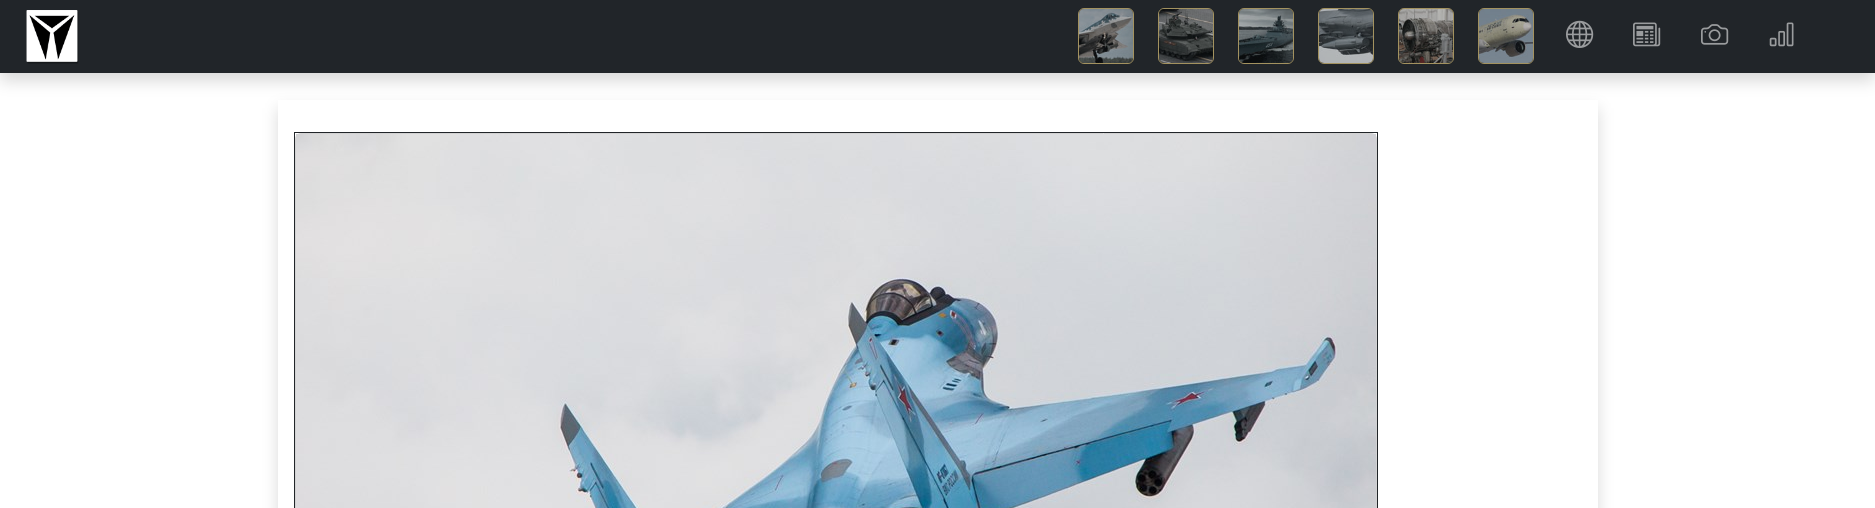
<!DOCTYPE html>
<meta charset="utf-8">
<style>body { margin: 0 } canvas { display: block }</style>
<canvas id="canvas" width="1875" height="508"></canvas>
<img id="img1" src="img_01.png" hidden>
<img id="img2" src="img_02.png" hidden>
<img id="img3" src="img_03.png" hidden>
<img id="img4" src="img_04.png" hidden>
<img id="img5" src="img_05.png" hidden>
<img id="img6" src="img_06.png" hidden>
<img id="img7" src="img_07.png" hidden>
<img id="img8" src="img_08.png" hidden>
<img id="img9" src="img_09.png" hidden>
<img id="img10" src="img_10.png" hidden>
<img id="img11" src="img_11.png" hidden>
<img id="img12" src="img_12.png" hidden>
<script>
window.onload = function () {
	const canvas = document.getElementById("canvas");
	const ctx = canvas.getContext("2d");
	ctx.miterLimit = 4;
	ctx.fontKerning = "normal";
	function fill(x, y, w, h) {
		ctx.fillRect(x, y, w, h);
	}
	function img(id, x, y, w, h) {
		ctx.drawImage(document.getElementById(id), x, y, w, h);
	}

	ctx.fillStyle = "#FFFFFF";
	fill(0, 0, 1875, 508);
	ctx.fillStyle = "rgba(0, 0, 0, 0.15)";
	ctx.filter = "blur(8px)";
	ctx.beginPath();
	ctx.rect(0, 8, 1875, 73);
	ctx.fill();
	ctx.filter = "none";
	ctx.fillStyle = "#212529";
	fill(0, 0, 1875, 73);
	img("img1", 26, 10, 53, 54);
	ctx.beginPath();
	ctx.roundRect(1078.5, 8.5, 55, 55, 5.5);
	ctx.strokeStyle = "#A3925F";
	ctx.stroke();
	img("img2", 1079, 9, 54, 54);
	ctx.beginPath();
	ctx.roundRect(1158.5, 8.5, 55, 55, 5.5);
	ctx.stroke();
	img("img3", 1159, 9, 54, 54);
	ctx.beginPath();
	ctx.roundRect(1238.5, 8.5, 55, 55, 5.5);
	ctx.stroke();
	img("img4", 1239, 9, 54, 54);
	ctx.beginPath();
	ctx.roundRect(1318.5, 8.5, 55, 55, 5.5);
	ctx.stroke();
	img("img5", 1319, 9, 54, 54);
	ctx.beginPath();
	ctx.roundRect(1398.5, 8.5, 55, 55, 5.5);
	ctx.stroke();
	img("img6", 1399, 9, 54, 54);
	ctx.beginPath();
	ctx.roundRect(1478.5, 8.5, 55, 55, 5.5);
	ctx.stroke();
	img("img7", 1479, 9, 54, 54);
	img("img8", 1566, 20, 28, 28);
	img("img9", 1633, 22, 28, 25);
	img("img10", 1701, 24, 28, 21);
	img("img11", 1769, 22, 25, 25);
	ctx.save();
	ctx.beginPath();
	ctx.moveTo(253, 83);
	ctx.lineTo(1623, 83);
	ctx.lineTo(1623, 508);
	ctx.lineTo(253, 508);
	ctx.closePath();
	ctx.moveTo(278, 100);
	ctx.lineTo(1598, 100);
	ctx.lineTo(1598, 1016);
	ctx.lineTo(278, 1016);
	ctx.closePath();
	ctx.clip("evenodd");
	ctx.fillStyle = "rgba(0, 0, 0, 0.15)";
	ctx.filter = "blur(8px)";
	ctx.beginPath();
	ctx.rect(278, 108, 1320, 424);
	ctx.fill();
	ctx.filter = "none";
	ctx.restore();
	ctx.strokeStyle = "#212529";
	ctx.strokeRect(294.5, 132.5, 1083, 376);
	ctx.beginPath();
	ctx.roundRect(295.5, 133.5, 1081, 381, 5.5);
	ctx.strokeStyle = "#D2D2D2";
	ctx.stroke();
	img("img12", 296, 134, 1080, 374);
};
</script>
